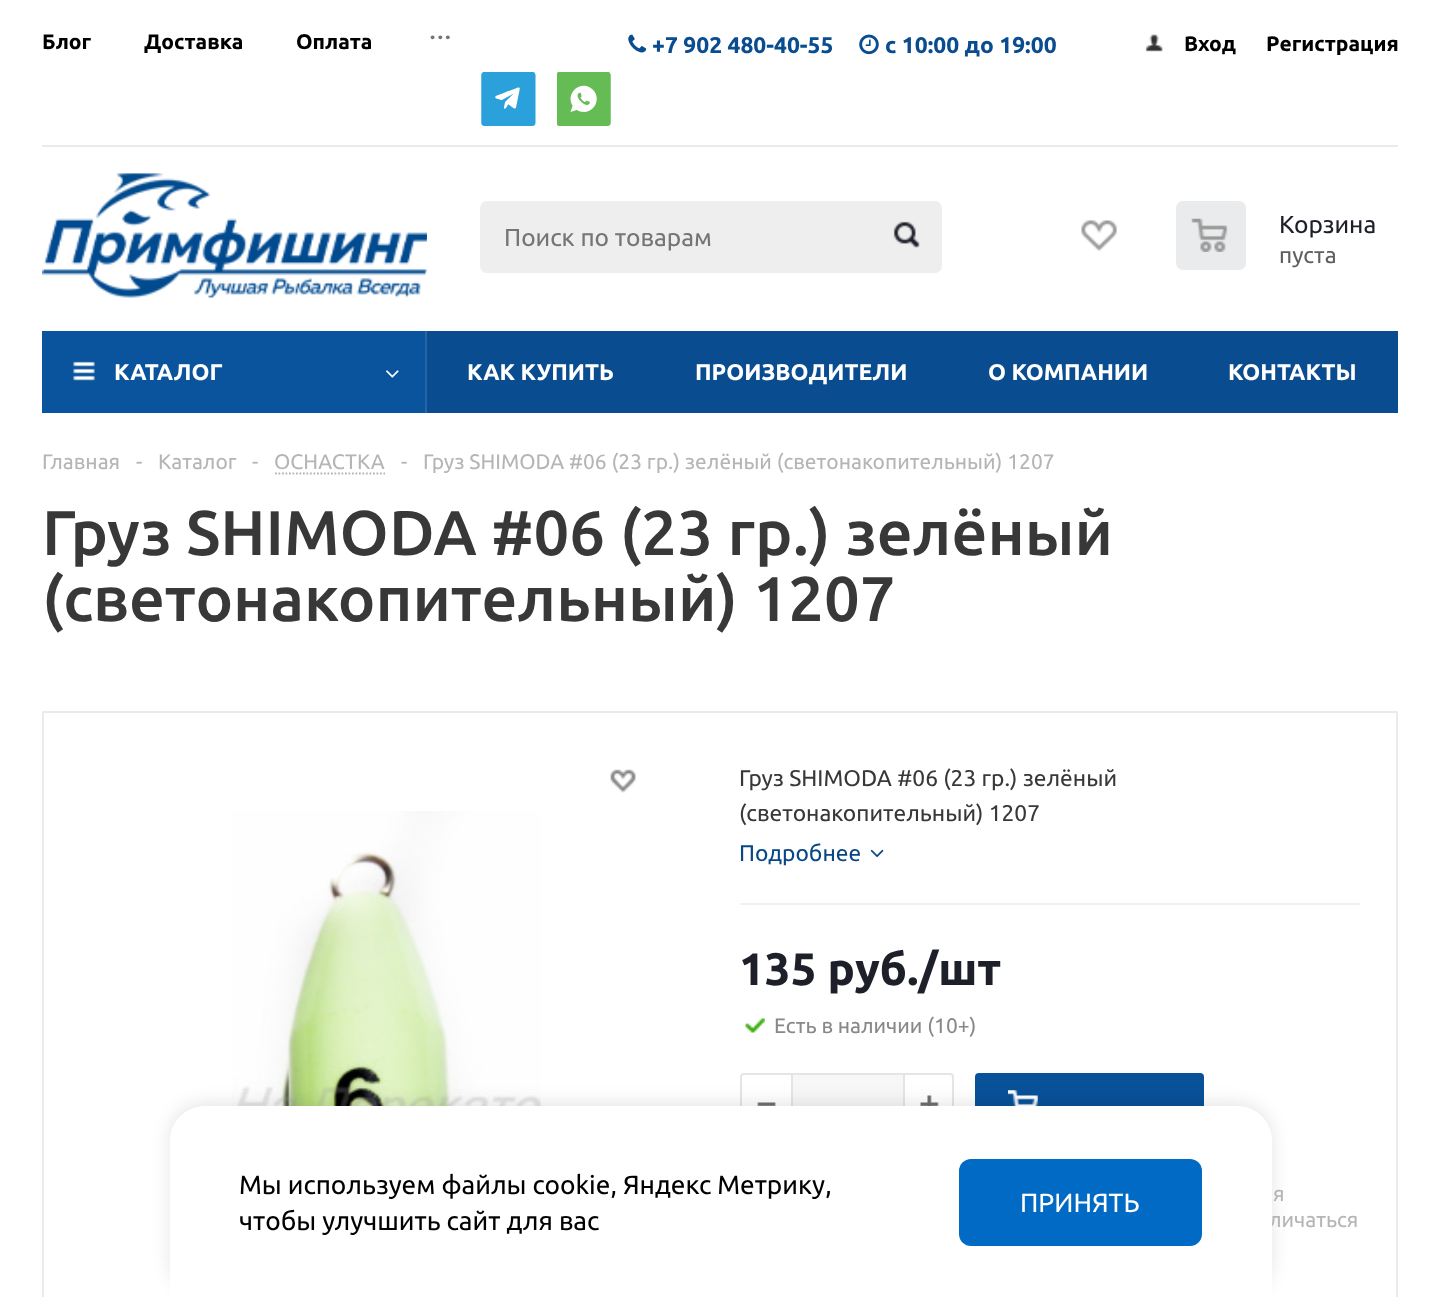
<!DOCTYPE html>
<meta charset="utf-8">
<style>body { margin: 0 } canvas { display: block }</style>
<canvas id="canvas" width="1440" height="1297"></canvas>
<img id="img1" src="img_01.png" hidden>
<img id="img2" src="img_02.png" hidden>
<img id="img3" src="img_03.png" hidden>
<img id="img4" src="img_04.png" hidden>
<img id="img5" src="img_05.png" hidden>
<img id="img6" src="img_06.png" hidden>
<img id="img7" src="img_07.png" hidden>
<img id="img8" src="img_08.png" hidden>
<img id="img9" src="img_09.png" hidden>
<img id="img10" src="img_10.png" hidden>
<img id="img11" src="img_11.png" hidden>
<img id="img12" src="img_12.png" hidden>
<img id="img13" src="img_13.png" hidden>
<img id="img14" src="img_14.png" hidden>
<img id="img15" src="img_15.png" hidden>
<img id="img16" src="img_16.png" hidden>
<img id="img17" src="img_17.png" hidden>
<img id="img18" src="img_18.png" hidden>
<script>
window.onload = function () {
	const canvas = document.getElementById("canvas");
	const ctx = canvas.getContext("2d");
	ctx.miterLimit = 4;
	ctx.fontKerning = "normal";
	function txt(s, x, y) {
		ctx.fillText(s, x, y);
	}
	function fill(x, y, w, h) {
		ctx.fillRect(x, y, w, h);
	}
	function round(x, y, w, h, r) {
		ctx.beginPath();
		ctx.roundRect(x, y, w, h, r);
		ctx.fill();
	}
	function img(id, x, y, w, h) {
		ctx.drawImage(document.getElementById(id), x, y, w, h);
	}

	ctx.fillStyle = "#FFFFFF";
	fill(0, 0, 1440, 1297);
	img("img1", 628, 34, 19, 19);
	img("img2", 859, 34, 20, 21);
	img("img3", 1145, 34, 18, 18);
	img("img4", 481, 72, 55, 54);
	img("img5", 557, 72, 54, 54);
	ctx.fillStyle = "#EAEBEC";
	fill(42, 145, 1356, 2);
	img("img6", 42, 173, 385, 125);
	ctx.fillStyle = "#EEEEEE";
	round(480, 201, 462, 72, 7);
	img("img7", 893, 221, 27, 27);
	img("img8", 1081, 220, 36, 31);
	ctx.fillStyle = "#EAEBEC";
	round(1176, 201, 70, 69, 7);
	img("img9", 1191, 218, 37, 34);
	ctx.fillStyle = "#094C8F";
	fill(427, 331, 971, 82);
	ctx.fillStyle = "#0A549D";
	fill(42, 331, 383, 82);
	img("img10", 73, 361, 22, 20);
	ctx.fillStyle = "#2365A7";
	fill(425, 331, 2, 82);
	img("img11", 386, 370, 13, 8);
	ctx.beginPath();
	ctx.moveTo(275, 473.5);
	ctx.lineTo(385, 473.5);
	ctx.strokeStyle = "#B4B4B4";
	ctx.lineWidth = 1.8;
	ctx.setLineDash([1.75, 1.75]);
	ctx.stroke();
	ctx.strokeStyle = "#EAEBEC";
	ctx.lineWidth = 2;
	ctx.setLineDash([]);
	ctx.strokeRect(43, 712, 1354, 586);
	img("img12", 610, 769, 26, 24);
	img("img13", 231, 811, 310, 295);
	ctx.fillStyle = "#F2F2F2";
	fill(740, 903, 620, 2);
	img("img14", 870, 849, 14, 9);
	img("img15", 745, 1018, 20, 15);
	ctx.beginPath();
	ctx.roundRect(741, 1074, 212, 61, 3);
	ctx.strokeStyle = "#E5E5E5";
	ctx.stroke();
	img("img16", 757, 1102, 19, 4);
	ctx.fillStyle = "#F7F7F7";
	fill(793, 1075, 110, 31);
	ctx.fillStyle = "#E5E5E5";
	fill(903, 1075, 2, 31);
	fill(791, 1075, 2, 31);
	img("img17", 920, 1095, 19, 11);
	ctx.fillStyle = "#095199";
	round(975, 1073, 229, 63, 4);
	img("img18", 1008, 1090, 30, 16);
	ctx.fillStyle = "rgba(0, 0, 0, 0.1)";
	ctx.filter = "blur(9px)";
	ctx.beginPath();
	ctx.roundRect(170, 1103, 1102, 192, 35);
	ctx.fill();
	ctx.filter = "none";
	ctx.font = "bold 21px Ubuntu";
	ctx.fillStyle = "#000000";
	txt("Блог", 42, 49);
	txt("Доставка", 144, 49);
	txt("Оплата", 296, 49);
	ctx.letterSpacing = "2.5px";
	ctx.fillStyle = "#757575";
	txt("...", 430, 39);
	ctx.letterSpacing = "0px";
	ctx.font = "bold 22.75px Ubuntu";
	ctx.fillStyle = "#094C8F";
	txt("+7 902 480-40-55", 652, 53);
	txt("с 10:00 до 19:00", 885, 53);
	ctx.font = "bold 21px Ubuntu";
	ctx.fillStyle = "#000000";
	txt("Вход", 1184, 51);
	txt("Регистрация", 1266, 51);
	ctx.font = "24.5px Ubuntu";
	ctx.fillStyle = "#757575";
	txt("Поиск по товарам", 504, 246);
	ctx.fillStyle = "#1D2029";
	txt("Корзина", 1279, 233);
	ctx.font = "22.75px Ubuntu";
	ctx.fillStyle = "#5F5F5F";
	txt("пуста", 1279, 263);
	ctx.font = "bold 22.75px Ubuntu";
	ctx.fillStyle = "#FFFFFF";
	txt("КАТАЛОГ", 114, 380);
	txt("КАК КУПИТЬ", 467, 380);
	txt("ПРОИЗВОДИТЕЛИ", 695, 380);
	txt("О КОМПАНИИ", 988, 380);
	txt("КОНТАКТЫ", 1228, 380);
	ctx.font = "21px Ubuntu";
	ctx.fillStyle = "#B6B5B5";
	txt("Главная", 42, 469);
	txt("-", 136, 469);
	txt("Каталог", 158, 469);
	txt("-", 252, 469);
	txt("ОСНАСТКА", 274, 469);
	txt("-", 401, 469);
	txt("Груз SHIMODA #06 (23 гр.) зелёный (светонакопительный) 1207", 423, 469);
	ctx.font = "500 63px Ubuntu";
	ctx.fillStyle = "#383838";
	txt("Груз SHIMODA #06 (23 гр.) зелёный", 42, 555);
	txt("(светонакопительный) 1207", 42, 621);
	ctx.font = "22.75px Ubuntu";
	txt("Груз SHIMODA #06 (23 гр.) зелёный", 739, 786);
	txt("(светонакопительный) 1207", 739, 821);
	ctx.fillStyle = "#084786";
	txt("Подробнее", 739, 861);
	ctx.font = "bold 45.5px Ubuntu";
	ctx.fillStyle = "#1D2029";
	txt("135 руб./шт", 739, 985);
	ctx.font = "21px Ubuntu";
	ctx.fillStyle = "#888888";
	txt("Есть в наличии (10+)", 774, 1033);
	ctx.fillStyle = "#B6B5B5";
	txt("я", 1273, 1201);
	txt("личаться", 1269, 1227);
	ctx.fillStyle = "#FFFFFF";
	ctx.beginPath();
	ctx.moveTo(205, 1106);
	ctx.lineTo(1237, 1106);
	ctx.bezierCurveTo(1256.5, 1106, 1272, 1121.5, 1272, 1141);
	ctx.lineTo(1272, 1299);
	ctx.lineTo(170, 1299);
	ctx.lineTo(170, 1141);
	ctx.bezierCurveTo(170, 1121.5, 185.5, 1106, 205, 1106);
	ctx.closePath();
	ctx.fill();
	ctx.font = "26.25px Ubuntu";
	ctx.fillStyle = "#000000";
	txt("Мы используем файлы cookie, Яндекс Метрику,", 239, 1194);
	txt("чтобы улучшить сайт для вас", 239, 1230);
	ctx.fillStyle = "#006AC5";
	round(959, 1159, 243, 87, 12);
	ctx.fillStyle = "#FFFFFF";
	txt("ПРИНЯТЬ", 1020, 1212);
};
</script>
